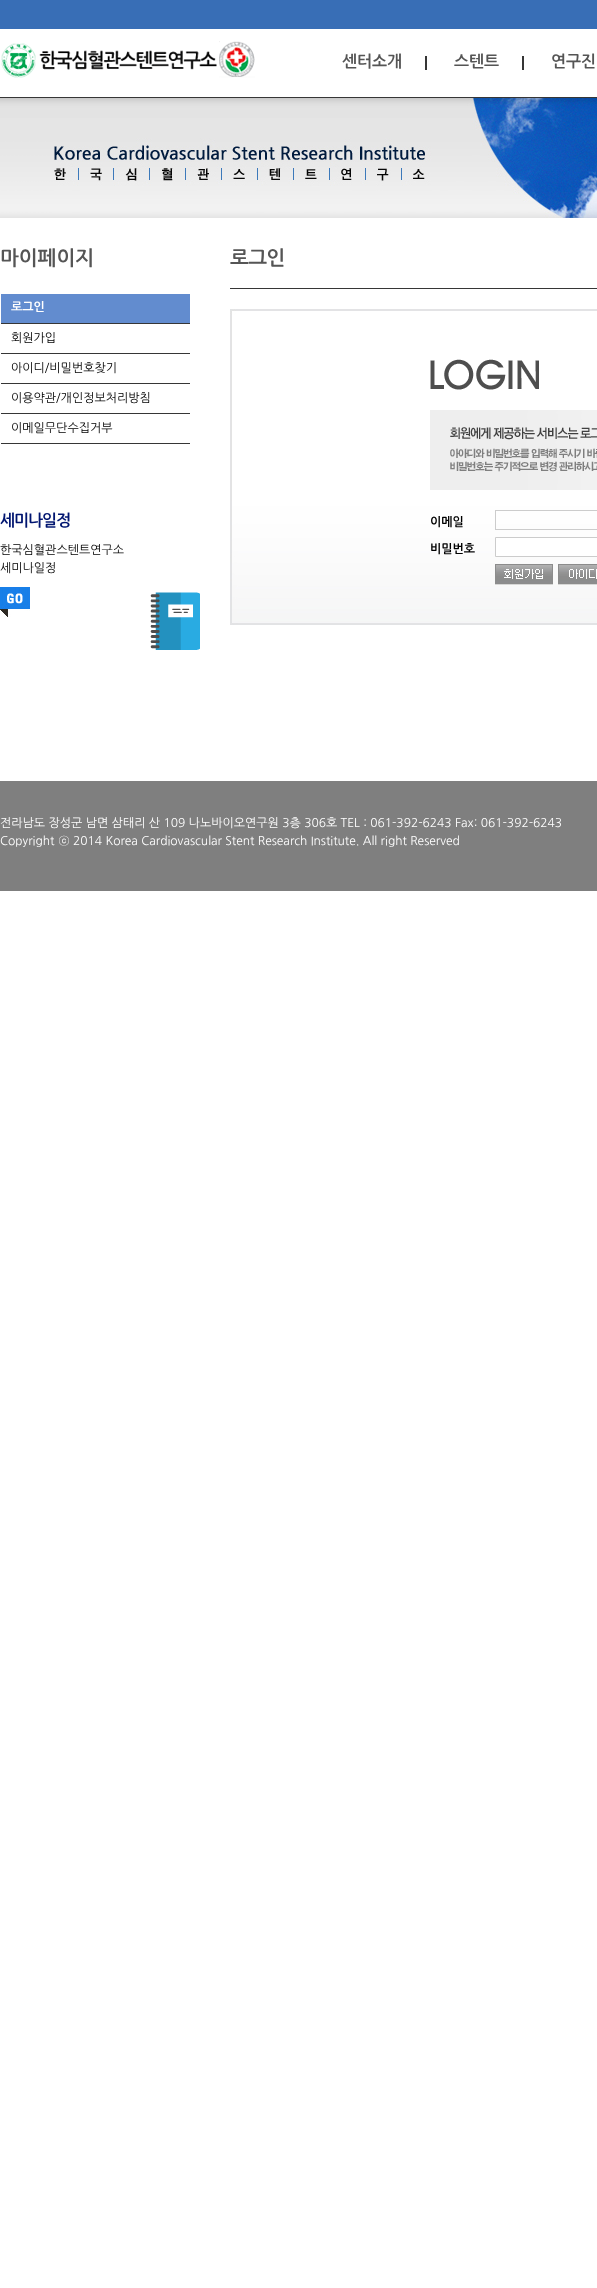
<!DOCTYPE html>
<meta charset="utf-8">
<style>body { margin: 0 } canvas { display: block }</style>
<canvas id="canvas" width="597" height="2288"></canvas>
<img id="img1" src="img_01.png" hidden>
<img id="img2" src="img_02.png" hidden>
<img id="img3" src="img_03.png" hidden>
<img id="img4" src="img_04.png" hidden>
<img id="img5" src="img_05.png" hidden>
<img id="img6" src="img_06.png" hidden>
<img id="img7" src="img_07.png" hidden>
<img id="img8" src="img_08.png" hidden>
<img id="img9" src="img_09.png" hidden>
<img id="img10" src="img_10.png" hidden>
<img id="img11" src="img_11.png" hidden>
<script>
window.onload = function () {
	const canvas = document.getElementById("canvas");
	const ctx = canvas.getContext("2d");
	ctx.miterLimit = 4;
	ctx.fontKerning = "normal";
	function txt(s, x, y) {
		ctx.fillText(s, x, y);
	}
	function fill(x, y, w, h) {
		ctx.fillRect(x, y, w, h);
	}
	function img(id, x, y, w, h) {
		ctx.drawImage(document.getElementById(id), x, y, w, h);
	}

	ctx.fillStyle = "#FFFFFF";
	fill(0, 0, 597, 2288);
	img("img1", 0, 0, 597, 98);
	img("img2", 1, 41, 254, 37);
	ctx.fillStyle = "#363636";
	fill(425, 56, 2, 14);
	fill(522, 56, 2, 14);
	img("img3", 0, 98, 54, 120);
	img("img4", 54, 98, 543, 120);
	ctx.fillStyle = "#628CCF";
	fill(1, 294, 189, 29);
	ctx.fillStyle = "#363636";
	fill(1, 323, 189, 1);
	fill(1, 353, 189, 1);
	fill(1, 383, 189, 1);
	fill(1, 413, 189, 1);
	fill(1, 443, 189, 1);
	img("img5", 150, 592, 50, 58);
	img("img6", 0, 587, 30, 30);
	fill(230, 288, 367, 1);
	img("img7", 230, 309, 367, 316);
	img("img8", 430, 359, 109, 31);
	img("img9", 430, 410, 167, 80);
	ctx.strokeStyle = "#CCCCCC";
	ctx.strokeRect(495.5, 510.5, 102, 19);
	ctx.fillStyle = "#FFFFFF";
	ctx.beginPath();
	ctx.rect(495.5, 537.5, 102, 19);
	ctx.fill();
	ctx.stroke();
	img("img10", 495, 564, 58, 21);
	img("img11", 558, 564, 39, 21);
	ctx.fillStyle = "#7F7F7F";
	fill(0, 781, 597, 110);
	ctx.font = "bold 16px NanumGothic";
	ctx.fillStyle = "#555555";
	txt("센터소개", 342, 67);
	txt("스텐트", 454, 67);
	txt("연구진", 551, 67);
	ctx.font = "bold 20px NanumGothic";
	txt("마이페이지", 0, 265);
	ctx.font = "bold 12px NanumGothic";
	ctx.fillStyle = "#FFFFFF";
	txt("로그인", 11, 311);
	ctx.font = "12px NanumGothic";
	ctx.fillStyle = "#000000";
	txt("회원가입", 11, 342);
	txt("아이디/비밀번호찾기", 11, 372);
	txt("이용약관/개인정보처리방침", 11, 402);
	txt("이메일무단수집거부", 11, 432);
	ctx.letterSpacing = "-1px";
	ctx.font = "bold 16px NanumGothic";
	ctx.fillStyle = "#001570";
	txt("세미나일정", 0, 526);
	ctx.letterSpacing = "0px";
	ctx.font = "12px NanumGothic";
	ctx.fillStyle = "#000000";
	txt("한국심혈관스텐트연구소", 0, 554);
	txt("세미나일정", 0, 572);
	ctx.letterSpacing = "-0.5px";
	ctx.font = "bold 20px NanumGothic";
	ctx.fillStyle = "#555555";
	txt("로그인", 230, 265);
	ctx.letterSpacing = "0px";
	ctx.font = "bold 12px NanumGothic";
	ctx.fillStyle = "#000000";
	txt("이메일", 430, 526);
	txt("비밀번호", 430, 553);
	ctx.font = "12px NanumGothic";
	ctx.fillStyle = "#FFFFFF";
	txt("전라남도 장성군 남면 삼태리 산 109 나노바이오연구원 3층 306호 TEL : 061-392-6243 Fax: 061-392-6243", 0, 827);
	txt("Copyright", 0, 845);
	ctx.font = "12px Dotum";
	txt("ⓒ", 58, 845);
	ctx.font = "12px NanumGothic";
	txt("2014 Korea Cardiovascular Stent Research Institute. All right Reserved", 73, 845);
};
</script>
